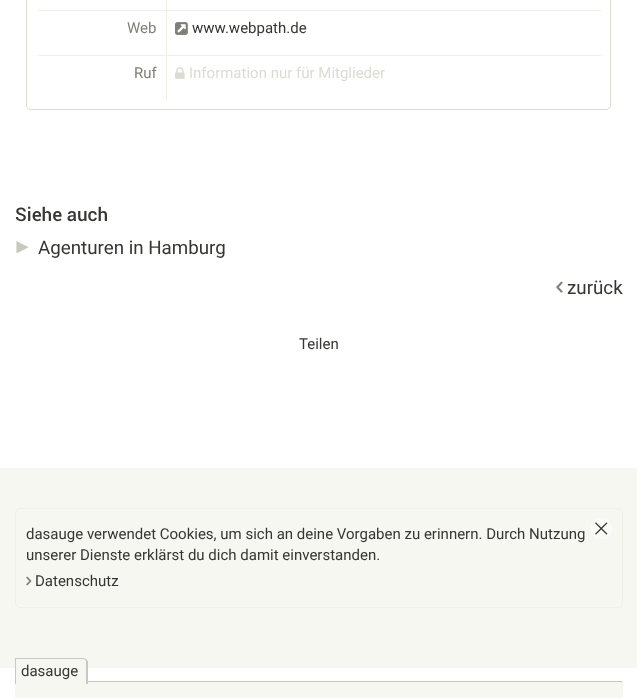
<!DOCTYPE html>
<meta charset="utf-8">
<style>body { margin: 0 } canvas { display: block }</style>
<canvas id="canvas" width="637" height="698"></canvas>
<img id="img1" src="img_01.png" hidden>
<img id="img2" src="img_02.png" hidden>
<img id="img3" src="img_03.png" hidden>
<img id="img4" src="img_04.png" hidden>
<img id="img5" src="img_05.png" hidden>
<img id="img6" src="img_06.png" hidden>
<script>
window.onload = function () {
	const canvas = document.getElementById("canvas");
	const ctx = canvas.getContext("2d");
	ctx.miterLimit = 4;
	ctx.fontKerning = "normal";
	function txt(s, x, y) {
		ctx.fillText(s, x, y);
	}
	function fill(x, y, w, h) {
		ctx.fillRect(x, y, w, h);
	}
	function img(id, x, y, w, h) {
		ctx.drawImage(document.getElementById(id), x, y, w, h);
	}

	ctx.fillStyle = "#FFFFFF";
	fill(0, 0, 637, 698);
	ctx.beginPath();
	ctx.roundRect(26.5, -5.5, 584, 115, 4.5);
	ctx.strokeStyle = "#DCDCD2";
	ctx.stroke();
	ctx.fillStyle = "#F0F0E6";
	fill(166, 10, 435, 1);
	fill(166, 55, 435, 1);
	fill(166, 55, 1, 45);
	fill(38, 55, 130, 1);
	fill(166, 10, 1, 46);
	fill(38, 10, 130, 1);
	fill(166, 0, 1, 11);
	img("img1", 175, 22, 13, 13);
	img("img2", 175, 67, 10, 12);
	img("img3", 16, 241, 13, 13);
	img("img4", 556, 281, 7, 12);
	ctx.fillStyle = "#F7F7F2";
	fill(0, 468, 637, 200);
	ctx.beginPath();
	ctx.roundRect(15.5, 508.5, 607, 99, 4.5);
	ctx.strokeStyle = "#F0F0E6";
	ctx.stroke();
	img("img5", 590, 518, 22, 21);
	img("img6", 26, 576, 6, 10);
	fill(15, 681, 608, 17);
	ctx.fillStyle = "#C8C8BE";
	ctx.beginPath();
	ctx.moveTo(16, 682);
	ctx.lineTo(15, 681);
	ctx.lineTo(622, 681);
	ctx.lineTo(621, 683);
	ctx.lineTo(621, 682);
	ctx.closePath();
	ctx.fill();
	ctx.fillStyle = "#F7F7F2";
	ctx.beginPath();
	ctx.roundRect(16, 659, 70, 25, [0, 4, 0, 0]);
	ctx.fill();
	ctx.fillStyle = "#C8C8BE";
	ctx.beginPath();
	ctx.moveTo(15, 658);
	ctx.lineTo(82, 658);
	ctx.bezierCurveTo(85, 658, 88, 660, 88, 662);
	ctx.lineTo(88, 684);
	ctx.lineTo(15, 684);
	ctx.closePath();
	ctx.moveTo(16, 659);
	ctx.lineTo(82, 659);
	ctx.bezierCurveTo(85, 659, 86, 660, 86, 662);
	ctx.lineTo(86, 684);
	ctx.lineTo(16, 684);
	ctx.closePath();
	ctx.fill("evenodd");
	ctx.font = "15px Roboto";
	ctx.fillStyle = "#808078";
	txt("Web", 127, 33);
	ctx.fillStyle = "#363634";
	txt("www.webpath.de", 192, 33);
	ctx.fillStyle = "#808078";
	txt("Ruf", 134, 78);
	ctx.fillStyle = "#DCDCD2";
	txt("Information nur für Mitglieder", 189, 78);
	ctx.font = "500 18.75px Roboto";
	ctx.fillStyle = "#363634";
	txt("Siehe auch", 15, 221);
	ctx.font = "18.75px Roboto";
	txt("Agenturen in Hamburg", 38, 254);
	txt("zurück", 567, 294);
	ctx.font = "15px Roboto";
	txt("Teilen", 299, 349);
	txt("dasauge verwendet Cookies, um sich an deine Vorgaben zu erinnern. Durch Nutzung", 26, 539);
	txt("unserer Dienste erklärst du dich damit einverstanden.", 26, 560);
	txt("Datenschutz", 35, 586);
	txt("dasauge", 21, 676);
};
</script>
